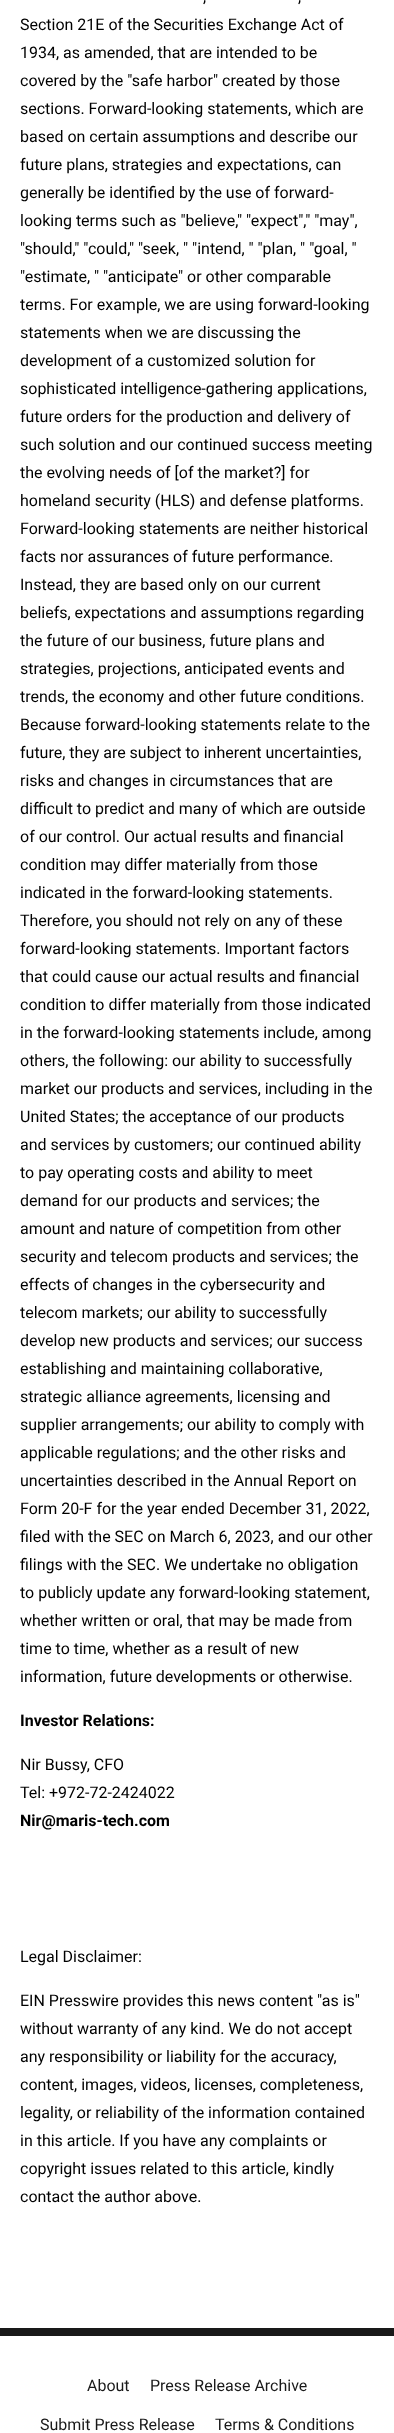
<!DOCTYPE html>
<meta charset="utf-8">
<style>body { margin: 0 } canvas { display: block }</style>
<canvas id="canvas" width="394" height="2433"></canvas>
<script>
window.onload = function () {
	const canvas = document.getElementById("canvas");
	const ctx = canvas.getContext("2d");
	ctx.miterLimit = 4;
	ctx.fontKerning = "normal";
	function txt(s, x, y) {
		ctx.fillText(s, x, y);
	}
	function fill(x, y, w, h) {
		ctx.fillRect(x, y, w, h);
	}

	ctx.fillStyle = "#FFFFFF";
	fill(0, 0, 394, 2433);
	ctx.fillStyle = "#191919";
	fill(0, 2328, 394, 8);
	ctx.font = "16px Roboto";
	ctx.fillStyle = "#000000";
	txt(",", 203, 2);
	txt(",", 298, 2);
	txt("Section 21E of the Securities Exchange Act of", 20, 30);
	txt("1934, as amended, that are intended to be", 20, 58);
	txt("covered by the \"safe harbor\" created by those", 20, 86);
	txt("sections. Forward-looking statements, which are", 20, 114);
	txt("based on certain assumptions and describe our", 20, 142);
	txt("future plans, strategies and expectations, can", 20, 170);
	txt("generally be identified by the use of forward-", 20, 198);
	txt("looking terms such as \"believe,\" \"expect\",\" \"may\",", 20, 226);
	txt("\"should,\" \"could,\" \"seek, \" \"intend, \" \"plan, \" \"goal, \"", 20, 254);
	txt("\"estimate, \" \"anticipate\" or other comparable", 20, 282);
	txt("terms. For example, we are using forward-looking", 20, 310);
	txt("statements when we are discussing the", 20, 338);
	txt("development of a customized solution for", 20, 366);
	txt("sophisticated intelligence-gathering applications,", 20, 394);
	txt("future orders for the production and delivery of", 20, 422);
	txt("such solution and our continued success meeting", 20, 450);
	txt("the evolving needs of [of the market?] for", 20, 478);
	txt("homeland security (HLS) and defense platforms.", 20, 506);
	txt("Forward-looking statements are neither historical", 20, 534);
	txt("facts nor assurances of future performance.", 20, 562);
	txt("Instead, they are based only on our current", 20, 590);
	txt("beliefs, expectations and assumptions regarding", 20, 618);
	txt("the future of our business, future plans and", 20, 646);
	txt("strategies, projections, anticipated events and", 20, 674);
	txt("trends, the economy and other future conditions.", 20, 702);
	txt("Because forward-looking statements relate to the", 20, 730);
	txt("future, they are subject to inherent uncertainties,", 20, 758);
	txt("risks and changes in circumstances that are", 20, 786);
	txt("difficult to predict and many of which are outside", 20, 814);
	txt("of our control. Our actual results and financial", 20, 842);
	txt("condition may differ materially from those", 20, 870);
	txt("indicated in the forward-looking statements.", 20, 898);
	txt("Therefore, you should not rely on any of these", 20, 926);
	txt("forward-looking statements. Important factors", 20, 954);
	txt("that could cause our actual results and financial", 20, 982);
	txt("condition to differ materially from those indicated", 20, 1010);
	txt("in the forward-looking statements include, among", 20, 1038);
	txt("others, the following: our ability to successfully", 20, 1066);
	txt("market our products and services, including in the", 20, 1094);
	txt("United States; the acceptance of our products", 20, 1122);
	txt("and services by customers; our continued ability", 20, 1150);
	txt("to pay operating costs and ability to meet", 20, 1178);
	txt("demand for our products and services; the", 20, 1206);
	txt("amount and nature of competition from other", 20, 1234);
	txt("security and telecom products and services; the", 20, 1262);
	txt("effects of changes in the cybersecurity and", 20, 1290);
	txt("telecom markets; our ability to successfully", 20, 1318);
	txt("develop new products and services; our success", 20, 1346);
	txt("establishing and maintaining collaborative,", 20, 1374);
	txt("strategic alliance agreements, licensing and", 20, 1402);
	txt("supplier arrangements; our ability to comply with", 20, 1430);
	txt("applicable regulations; and the other risks and", 20, 1458);
	txt("uncertainties described in the Annual Report on", 20, 1486);
	txt("Form 20-F for the year ended December 31, 2022,", 20, 1514);
	txt("filed with the SEC on March 6, 2023, and our other", 20, 1542);
	txt("filings with the SEC. We undertake no obligation", 20, 1570);
	txt("to publicly update any forward-looking statement,", 20, 1598);
	txt("whether written or oral, that may be made from", 20, 1626);
	txt("time to time, whether as a result of new", 20, 1654);
	txt("information, future developments or otherwise.", 20, 1682);
	ctx.font = "bold 16px Roboto";
	txt("Investor Relations:", 20, 1726);
	ctx.font = "16px Roboto";
	txt("Nir Bussy, CFO", 20, 1770);
	txt("Tel: +972-72-2424022", 20, 1798);
	ctx.font = "bold 16px Roboto";
	txt("Nir@maris-tech.com", 20, 1826);
	ctx.font = "16px Roboto";
	txt("Legal Disclaimer:", 20, 1962);
	txt("EIN Presswire provides this news content \"as is\"", 20, 2006);
	txt("without warranty of any kind. We do not accept", 20, 2034);
	txt("any responsibility or liability for the accuracy,", 20, 2062);
	txt("content, images, videos, licenses, completeness,", 20, 2090);
	txt("legality, or reliability of the information contained", 20, 2118);
	txt("in this article. If you have any complaints or", 20, 2146);
	txt("copyright issues related to this article, kindly", 20, 2174);
	txt("contact the author above.", 20, 2202);
	ctx.fillStyle = "#191919";
	txt("About", 87, 2391);
	txt("Press Release Archive", 150, 2391);
	txt("Submit Press Release", 40, 2430);
	txt("Terms & Conditions", 215, 2430);
};
</script>
